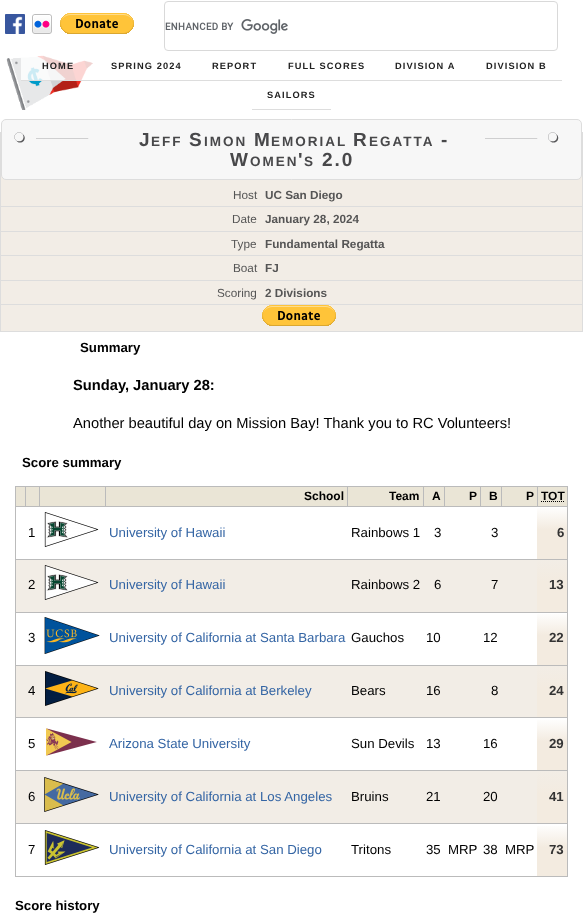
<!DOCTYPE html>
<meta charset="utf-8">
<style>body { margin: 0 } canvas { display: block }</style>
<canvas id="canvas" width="583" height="916"></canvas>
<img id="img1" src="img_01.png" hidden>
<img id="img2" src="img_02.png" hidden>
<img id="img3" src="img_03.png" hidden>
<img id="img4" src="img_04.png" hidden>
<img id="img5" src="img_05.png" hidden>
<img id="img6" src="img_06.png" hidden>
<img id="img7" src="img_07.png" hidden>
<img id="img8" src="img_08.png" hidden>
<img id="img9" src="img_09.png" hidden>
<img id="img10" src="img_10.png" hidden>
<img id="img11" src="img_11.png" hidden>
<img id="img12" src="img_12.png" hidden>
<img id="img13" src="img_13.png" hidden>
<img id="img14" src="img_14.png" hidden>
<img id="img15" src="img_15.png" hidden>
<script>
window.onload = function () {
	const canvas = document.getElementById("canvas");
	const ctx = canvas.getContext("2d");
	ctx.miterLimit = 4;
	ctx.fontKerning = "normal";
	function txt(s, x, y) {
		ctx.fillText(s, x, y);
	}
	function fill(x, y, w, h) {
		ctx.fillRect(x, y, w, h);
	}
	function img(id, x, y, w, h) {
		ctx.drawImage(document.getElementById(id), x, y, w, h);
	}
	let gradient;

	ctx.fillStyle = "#FFFFFF";
	fill(0, 0, 583, 916);
	img("img1", 5, 14, 20, 20);
	img("img2", 32, 14, 20, 20);
	img("img3", 60, 13, 74, 21);
	ctx.beginPath();
	ctx.roundRect(164.5, 1.5, 393, 49, 3.5);
	ctx.strokeStyle = "#D9D9D9";
	ctx.stroke();
	img("img4", 165, 19, 123, 15);
	img("img5", 6, 55, 87, 55);
	ctx.fillStyle = "rgba(255, 255, 255, 0.8)";
	fill(21, 55, 72, 25);
	ctx.fillStyle = "#DDDDDD";
	fill(21, 80, 541, 1);
	fill(252, 109, 79, 1);
	ctx.fillStyle = "#F2EDE6";
	fill(1, 175, 581, 156);
	ctx.strokeStyle = "#DDDDDD";
	ctx.strokeRect(0.5, 132.5, 582, 199);
	ctx.fillStyle = "#F7F7F7";
	ctx.beginPath();
	ctx.roundRect(1.5, 119.5, 580, 60, 4.5);
	ctx.fill();
	ctx.stroke();
	img("img6", 14, 132, 75, 11);
	img("img7", 485, 132, 74, 11);
	ctx.fillStyle = "#DDDDDD";
	fill(1, 206, 582, 1);
	fill(1, 231, 582, 1);
	fill(1, 255, 582, 1);
	fill(1, 280, 582, 1);
	fill(1, 304, 582, 1);
	img("img8", 262, 305, 74, 21);
	ctx.fillStyle = "#EAE5D6";
	fill(16, 487, 551, 19);
	ctx.fillStyle = "#BBBBBB";
	fill(15, 486, 553, 1);
	fill(15, 506, 553, 1);
	fill(567, 506, 1, 371);
	fill(567, 486, 1, 21);
	fill(15, 876, 553, 1);
	fill(15, 506, 1, 371);
	fill(15, 486, 1, 21);
	fill(25, 486, 1, 21);
	fill(39, 486, 1, 21);
	fill(105, 486, 1, 21);
	fill(347, 486, 1, 21);
	fill(423, 486, 1, 21);
	fill(444, 486, 1, 21);
	fill(480, 486, 1, 21);
	fill(501, 486, 1, 21);
	fill(537, 486, 1, 21);
	ctx.beginPath();
	ctx.moveTo(541, 501.5);
	ctx.lineTo(564.5, 501.5);
	ctx.strokeStyle = "#000000";
	ctx.setLineDash([1, 1]);
	ctx.stroke();
	fill(15, 559, 553, 1);
	img("img9", 44, 512, 55, 35);
	gradient = ctx.createLinearGradient(553, 506, 553, 559);
	gradient.addColorStop(0, "#FFFFFF");
	gradient.addColorStop(0.44, "#F3EBE0");
	ctx.fillStyle = gradient;
	fill(537, 508, 30, 51);
	ctx.fillStyle = "#F2EDE6";
	fill(16, 560, 521, 52);
	ctx.fillStyle = "#BBBBBB";
	fill(15, 612, 553, 1);
	img("img10", 44, 565, 55, 35);
	gradient = ctx.createLinearGradient(553, 559, 553, 612);
	gradient.addColorStop(0, "#F2EDE6");
	gradient.addColorStop(0.44, "#F3EBE0");
	ctx.fillStyle = gradient;
	fill(537, 560, 30, 52);
	ctx.fillStyle = "#BBBBBB";
	fill(15, 665, 553, 1);
	img("img11", 44, 617, 56, 37);
	gradient = ctx.createLinearGradient(553, 612, 553, 665);
	gradient.addColorStop(0, "#FFFFFF");
	gradient.addColorStop(0.44, "#F3EBE0");
	ctx.fillStyle = gradient;
	fill(537, 614, 30, 51);
	ctx.fillStyle = "#F2EDE6";
	fill(16, 666, 521, 51);
	ctx.fillStyle = "#BBBBBB";
	fill(15, 717, 553, 1);
	img("img12", 45, 671, 54, 35);
	gradient = ctx.createLinearGradient(553, 665, 553, 718);
	gradient.addColorStop(0, "#F2EDE6");
	gradient.addColorStop(0.44, "#F3EBE0");
	ctx.fillStyle = gradient;
	fill(537, 666, 30, 51);
	ctx.fillStyle = "#BBBBBB";
	fill(15, 770, 553, 1);
	img("img13", 46, 728, 51, 28);
	gradient = ctx.createLinearGradient(553, 718, 553, 771);
	gradient.addColorStop(0, "#FFFFFF");
	gradient.addColorStop(0.44, "#F3EBE0");
	ctx.fillStyle = gradient;
	fill(537, 720, 30, 50);
	ctx.fillStyle = "#F2EDE6";
	fill(16, 771, 521, 52);
	ctx.fillStyle = "#BBBBBB";
	fill(15, 823, 553, 1);
	img("img14", 44, 777, 55, 35);
	gradient = ctx.createLinearGradient(553, 771, 553, 824);
	gradient.addColorStop(0, "#F2EDE6");
	gradient.addColorStop(0.44, "#F3EBE0");
	ctx.fillStyle = gradient;
	fill(537, 771, 30, 52);
	img("img15", 44, 830, 56, 35);
	gradient = ctx.createLinearGradient(553, 824, 553, 877);
	gradient.addColorStop(0, "#FFFFFF");
	gradient.addColorStop(0.44, "#F3EBE0");
	ctx.fillStyle = gradient;
	fill(537, 826, 30, 50);
	ctx.letterSpacing = "1.1px";
	ctx.font = "bold 9.25px Liberation Sans";
	ctx.fillStyle = "#222222";
	txt("HOME", 42, 69);
	txt("SPRING 2024", 111, 69);
	txt("REPORT", 212, 69);
	txt("FULL SCORES", 288, 69);
	txt("DIVISION A", 395, 69);
	txt("DIVISION B", 486, 69);
	txt("SAILORS", 267, 98);
	ctx.letterSpacing = "2px";
	ctx.font = "bold 19px Liberation Sans";
	ctx.fillStyle = "#48484A";
	txt("J", 139, 146);
	ctx.font = "bold 13.5px Liberation Sans";
	txt("EFF", 151, 146);
	ctx.font = "bold 19px Liberation Sans";
	txt("S", 189, 146);
	ctx.font = "bold 13.5px Liberation Sans";
	txt("IMON", 204, 146);
	ctx.font = "bold 19px Liberation Sans";
	txt("M", 254, 146);
	ctx.font = "bold 13.5px Liberation Sans";
	txt("EMORIAL", 271, 146);
	ctx.font = "bold 19px Liberation Sans";
	txt("R", 353, 146);
	ctx.font = "bold 13.5px Liberation Sans";
	txt("EGATTA", 369, 146);
	ctx.font = "bold 19px Liberation Sans";
	txt("-", 441, 146);
	txt("W", 230, 166);
	ctx.font = "bold 13.5px Liberation Sans";
	txt("OMEN", 250, 166);
	ctx.font = "bold 19px Liberation Sans";
	txt("'", 298, 166);
	ctx.font = "bold 13.5px Liberation Sans";
	txt("S", 304, 166);
	ctx.font = "bold 19px Liberation Sans";
	txt("2.0", 322, 166);
	ctx.letterSpacing = "0px";
	ctx.font = "11.75px Liberation Sans";
	ctx.fillStyle = "#555555";
	txt("Host", 233, 199);
	ctx.font = "bold 11.75px Liberation Sans";
	txt("UC San Diego", 265, 199);
	ctx.font = "11.75px Liberation Sans";
	txt("Date", 232, 223);
	ctx.font = "bold 11.75px Liberation Sans";
	txt("January 28, 2024", 265, 223);
	ctx.font = "11.75px Liberation Sans";
	txt("Type", 231, 248);
	ctx.font = "bold 11.75px Liberation Sans";
	txt("Fundamental Regatta", 265, 248);
	ctx.font = "11.75px Liberation Sans";
	txt("Boat", 233, 272);
	ctx.font = "bold 11.75px Liberation Sans";
	txt("FJ", 265, 272);
	ctx.font = "11.75px Liberation Sans";
	txt("Scoring", 217, 297);
	ctx.font = "bold 11.75px Liberation Sans";
	txt("2 Divisions", 265, 297);
	ctx.font = "bold 13.25px Liberation Sans";
	ctx.fillStyle = "#000000";
	txt("Summary", 80, 352);
	ctx.font = "bold 14.7px Liberation Sans";
	txt("Sunday, January 28:", 73, 390);
	ctx.font = "14.7px Liberation Sans";
	txt("Another beautiful day on Mission Bay! Thank you to RC Volunteers!", 73, 428);
	ctx.font = "bold 13.25px Liberation Sans";
	txt("Score summary", 22, 467);
	ctx.font = "bold 12px Liberation Sans";
	txt("School", 304, 500);
	txt("Team", 389, 500);
	txt("A", 432, 500);
	txt("P", 469, 500);
	txt("B", 489, 500);
	txt("P", 526, 500);
	txt("TOT", 541, 500);
	ctx.font = "13.25px Liberation Sans";
	txt("1", 28, 537);
	ctx.fillStyle = "#3465A4";
	txt("University of Hawaii", 109, 537);
	ctx.fillStyle = "#000000";
	txt("Rainbows 1", 351, 537);
	txt("3", 434, 537);
	txt("3", 491, 537);
	ctx.font = "bold 13.25px Liberation Sans";
	ctx.fillStyle = "#333333";
	txt("6", 557, 537);
	ctx.font = "13.25px Liberation Sans";
	ctx.fillStyle = "#000000";
	txt("2", 28, 589);
	ctx.fillStyle = "#3465A4";
	txt("University of Hawaii", 109, 589);
	ctx.fillStyle = "#000000";
	txt("Rainbows 2", 351, 589);
	txt("6", 434, 589);
	txt("7", 491, 589);
	ctx.font = "bold 13.25px Liberation Sans";
	ctx.fillStyle = "#333333";
	txt("13", 549, 589);
	ctx.font = "13.25px Liberation Sans";
	ctx.fillStyle = "#000000";
	txt("3", 28, 642);
	ctx.fillStyle = "#3465A4";
	txt("University of California at Santa Barbara", 109, 642);
	ctx.fillStyle = "#000000";
	txt("Gauchos", 351, 642);
	txt("10", 426, 642);
	txt("12", 483, 642);
	ctx.font = "bold 13.25px Liberation Sans";
	ctx.fillStyle = "#333333";
	txt("22", 549, 642);
	ctx.font = "13.25px Liberation Sans";
	ctx.fillStyle = "#000000";
	txt("4", 28, 695);
	ctx.fillStyle = "#3465A4";
	txt("University of California at Berkeley", 109, 695);
	ctx.fillStyle = "#000000";
	txt("Bears", 351, 695);
	txt("16", 426, 695);
	txt("8", 491, 695);
	ctx.font = "bold 13.25px Liberation Sans";
	ctx.fillStyle = "#333333";
	txt("24", 549, 695);
	ctx.font = "13.25px Liberation Sans";
	ctx.fillStyle = "#000000";
	txt("5", 28, 748);
	ctx.fillStyle = "#3465A4";
	txt("Arizona State University", 109, 748);
	ctx.fillStyle = "#000000";
	txt("Sun Devils", 351, 748);
	txt("13", 426, 748);
	txt("16", 483, 748);
	ctx.font = "bold 13.25px Liberation Sans";
	ctx.fillStyle = "#333333";
	txt("29", 549, 748);
	ctx.font = "13.25px Liberation Sans";
	ctx.fillStyle = "#000000";
	txt("6", 28, 801);
	ctx.fillStyle = "#3465A4";
	txt("University of California at Los Angeles", 109, 801);
	ctx.fillStyle = "#000000";
	txt("Bruins", 351, 801);
	txt("21", 426, 801);
	txt("20", 483, 801);
	ctx.font = "bold 13.25px Liberation Sans";
	ctx.fillStyle = "#333333";
	txt("41", 549, 801);
	ctx.font = "13.25px Liberation Sans";
	ctx.fillStyle = "#000000";
	txt("7", 28, 854);
	ctx.fillStyle = "#3465A4";
	txt("University of California at San Diego", 109, 854);
	ctx.fillStyle = "#000000";
	txt("Tritons", 351, 854);
	txt("35", 426, 854);
	txt("MRP", 448, 854);
	txt("38", 483, 854);
	txt("MRP", 505, 854);
	ctx.font = "bold 13.25px Liberation Sans";
	ctx.fillStyle = "#333333";
	txt("73", 549, 854);
	ctx.fillStyle = "#000000";
	txt("Score history", 15, 910);
};
</script>
